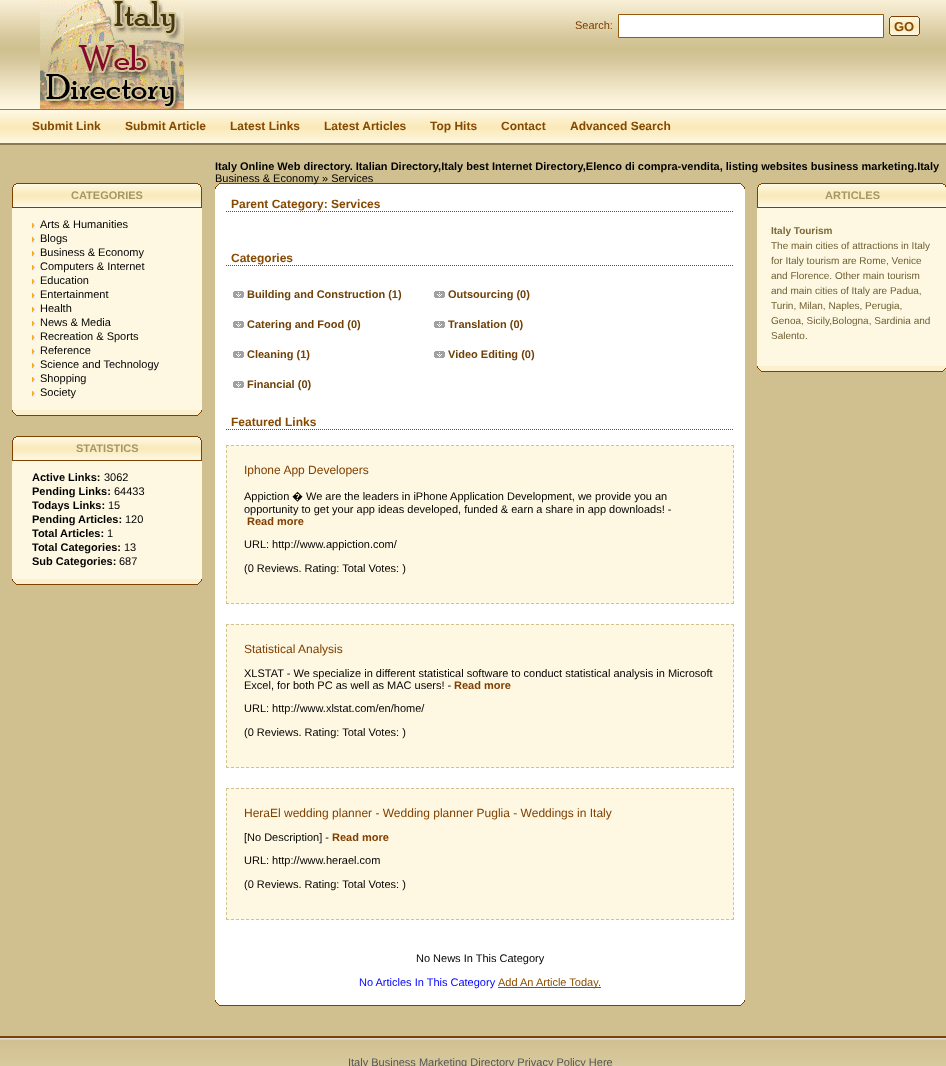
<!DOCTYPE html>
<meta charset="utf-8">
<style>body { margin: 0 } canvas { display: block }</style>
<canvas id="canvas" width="946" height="1066"></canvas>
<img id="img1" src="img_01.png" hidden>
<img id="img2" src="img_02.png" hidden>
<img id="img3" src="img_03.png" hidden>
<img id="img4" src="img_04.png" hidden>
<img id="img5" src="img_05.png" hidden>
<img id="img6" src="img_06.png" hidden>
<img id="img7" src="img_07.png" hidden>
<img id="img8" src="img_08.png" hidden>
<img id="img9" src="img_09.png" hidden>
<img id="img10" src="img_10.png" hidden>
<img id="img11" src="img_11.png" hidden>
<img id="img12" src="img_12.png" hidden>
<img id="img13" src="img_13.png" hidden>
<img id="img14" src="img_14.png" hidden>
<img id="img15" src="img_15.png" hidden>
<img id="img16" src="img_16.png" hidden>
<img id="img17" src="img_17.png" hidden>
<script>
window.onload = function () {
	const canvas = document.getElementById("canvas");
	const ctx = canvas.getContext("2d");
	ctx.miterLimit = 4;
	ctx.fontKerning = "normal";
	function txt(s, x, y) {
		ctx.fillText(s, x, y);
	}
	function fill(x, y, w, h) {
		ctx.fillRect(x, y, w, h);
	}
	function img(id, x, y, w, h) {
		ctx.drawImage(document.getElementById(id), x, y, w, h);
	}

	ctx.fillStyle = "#FFFFFF";
	fill(0, 0, 946, 1066);
	img("img1", 0, 0, 946, 109);
	img("img2", 40, 0, 144, 109);
	ctx.beginPath();
	ctx.rect(618.5, 14.5, 265, 23);
	ctx.fill();
	ctx.strokeStyle = "#975B10";
	ctx.stroke();
	img("img3", 889, 16, 5, 20);
	img("img4", 894, 16, 21, 20);
	img("img5", 915, 16, 5, 20);
	img("img6", 0, 110, 946, 33);
	ctx.fillStyle = "#897B52";
	fill(0, 109, 946, 1);
	ctx.fillStyle = "#D0C090";
	fill(0, 145, 946, 891);
	ctx.fillStyle = "#897B52";
	fill(0, 143, 946, 2);
	img("img7", 12, 183, 6, 25);
	img("img8", 18, 183, 178, 25);
	img("img9", 196, 183, 6, 25);
	ctx.fillStyle = "#FEF7E1";
	fill(12, 208, 190, 202);
	img("img10", 32, 223, 3, 6);
	img("img10", 32, 237, 3, 6);
	img("img10", 32, 251, 3, 6);
	img("img10", 32, 265, 3, 6);
	img("img10", 32, 279, 3, 6);
	img("img10", 32, 293, 3, 6);
	img("img10", 32, 307, 3, 6);
	img("img10", 32, 321, 3, 6);
	img("img10", 32, 335, 3, 6);
	img("img10", 32, 349, 3, 6);
	img("img10", 32, 363, 3, 6);
	img("img10", 32, 377, 3, 6);
	img("img10", 32, 391, 3, 6);
	img("img11", 12, 410, 190, 6);
	img("img7", 12, 436, 6, 25);
	img("img8", 18, 436, 178, 25);
	img("img9", 196, 436, 6, 25);
	fill(12, 461, 190, 118);
	img("img11", 12, 579, 190, 6);
	img("img12", 215, 183, 530, 6);
	ctx.fillStyle = "#FFFFFF";
	fill(215, 189, 530, 811);
	ctx.beginPath();
	ctx.moveTo(226, 211.5);
	ctx.lineTo(734, 211.5);
	ctx.strokeStyle = "#804700";
	ctx.setLineDash([1, 1]);
	ctx.stroke();
	ctx.beginPath();
	ctx.moveTo(226, 265.5);
	ctx.lineTo(734, 265.5);
	ctx.stroke();
	img("img13", 233, 291, 11, 7);
	img("img13", 233, 321, 11, 7);
	img("img13", 233, 351, 11, 7);
	img("img13", 233, 381, 11, 7);
	img("img13", 434, 291, 11, 7);
	img("img13", 434, 321, 11, 7);
	img("img13", 434, 351, 11, 7);
	ctx.beginPath();
	ctx.moveTo(226, 429.5);
	ctx.lineTo(734, 429.5);
	ctx.stroke();
	ctx.fillStyle = "#FEF7E1";
	fill(226, 445, 508, 159);
	ctx.beginPath();
	ctx.moveTo(226, 445.5);
	ctx.lineTo(734, 445.5);
	ctx.strokeStyle = "#D1C292";
	ctx.setLineDash([3, 2]);
	ctx.stroke();
	ctx.beginPath();
	ctx.moveTo(733.5, 445);
	ctx.lineTo(733.5, 604);
	ctx.setLineDash([3, 2.03]);
	ctx.stroke();
	ctx.beginPath();
	ctx.moveTo(226, 603.5);
	ctx.lineTo(734, 603.5);
	ctx.setLineDash([3, 2]);
	ctx.stroke();
	ctx.beginPath();
	ctx.moveTo(226.5, 445);
	ctx.lineTo(226.5, 604);
	ctx.setLineDash([3, 2.03]);
	ctx.stroke();
	fill(226, 624, 508, 144);
	ctx.beginPath();
	ctx.moveTo(226, 624.5);
	ctx.lineTo(734, 624.5);
	ctx.setLineDash([3, 2]);
	ctx.stroke();
	ctx.beginPath();
	ctx.moveTo(733.5, 624);
	ctx.lineTo(733.5, 768);
	ctx.setLineDash([3, 2.04]);
	ctx.stroke();
	ctx.beginPath();
	ctx.moveTo(226, 767.5);
	ctx.lineTo(734, 767.5);
	ctx.setLineDash([3, 2]);
	ctx.stroke();
	ctx.beginPath();
	ctx.moveTo(226.5, 624);
	ctx.lineTo(226.5, 768);
	ctx.setLineDash([3, 2.04]);
	ctx.stroke();
	fill(226, 788, 508, 132);
	ctx.beginPath();
	ctx.moveTo(226, 788.5);
	ctx.lineTo(734, 788.5);
	ctx.setLineDash([3, 2]);
	ctx.stroke();
	ctx.beginPath();
	ctx.moveTo(733.5, 788);
	ctx.lineTo(733.5, 920);
	ctx.setLineDash([3, 1.96]);
	ctx.stroke();
	ctx.beginPath();
	ctx.moveTo(226, 919.5);
	ctx.lineTo(734, 919.5);
	ctx.setLineDash([3, 2]);
	ctx.stroke();
	ctx.beginPath();
	ctx.moveTo(226.5, 788);
	ctx.lineTo(226.5, 920);
	ctx.setLineDash([3, 1.96]);
	ctx.stroke();
	ctx.fillStyle = "#8C4E00";
	fill(498, 987, 103, 1);
	img("img14", 215, 1000, 530, 6);
	img("img7", 757, 183, 6, 25);
	img("img8", 763, 183, 178, 25);
	img("img15", 941, 183, 5, 25);
	ctx.fillStyle = "#FEF7E1";
	fill(757, 208, 189, 158);
	img("img16", 757, 366, 189, 6);
	img("img17", 0, 1036, 946, 30);
	ctx.font = "11px Liberation Sans";
	ctx.fillStyle = "#804000";
	txt("Search:", 575, 29);
	ctx.font = "bold 13px Liberation Sans";
	ctx.fillStyle = "#854900";
	txt("GO", 894, 31);
	ctx.font = "bold 12px Liberation Sans";
	txt("Submit Link", 32, 130);
	txt("Submit Article", 125, 130);
	txt("Latest Links", 230, 130);
	txt("Latest Articles", 324, 130);
	txt("Top Hits", 430, 130);
	txt("Contact", 501, 130);
	txt("Advanced Search", 570, 130);
	ctx.font = "bold 11px Liberation Sans";
	ctx.fillStyle = "#000000";
	txt("Italy Online Web directory. Italian Directory,Italy best Internet Directory,Elenco di compra-vendita, listing websites business marketing.Italy", 215, 170);
	ctx.font = "11px Liberation Sans";
	txt("Business & Economy » Services", 215, 182);
	ctx.font = "bold 11px Liberation Sans";
	ctx.fillStyle = "#A69768";
	txt("CATEGORIES", 71, 199);
	ctx.font = "11px Liberation Sans";
	ctx.fillStyle = "#000000";
	txt("Arts & Humanities", 40, 228);
	txt("Blogs", 40, 242);
	txt("Business & Economy", 40, 256);
	txt("Computers & Internet", 40, 270);
	txt("Education", 40, 284);
	txt("Entertainment", 40, 298);
	txt("Health", 40, 312);
	txt("News & Media", 40, 326);
	txt("Recreation & Sports", 40, 340);
	txt("Reference", 40, 354);
	txt("Science and Technology", 40, 368);
	txt("Shopping", 40, 382);
	txt("Society", 40, 396);
	ctx.font = "bold 11px Liberation Sans";
	ctx.fillStyle = "#A69768";
	txt("STATISTICS", 76, 452);
	ctx.fillStyle = "#000000";
	txt("Active Links:", 32, 481);
	ctx.font = "11px Liberation Sans";
	txt("3062", 104, 481);
	ctx.font = "bold 11px Liberation Sans";
	txt("Pending Links:", 32, 495);
	ctx.font = "11px Liberation Sans";
	txt("64433", 114, 495);
	ctx.font = "bold 11px Liberation Sans";
	txt("Todays Links:", 32, 509);
	ctx.font = "11px Liberation Sans";
	txt("15", 108, 509);
	ctx.font = "bold 11px Liberation Sans";
	txt("Pending Articles:", 32, 523);
	ctx.font = "11px Liberation Sans";
	txt("120", 125, 523);
	ctx.font = "bold 11px Liberation Sans";
	txt("Total Articles:", 32, 537);
	ctx.font = "11px Liberation Sans";
	txt("1", 107, 537);
	ctx.font = "bold 11px Liberation Sans";
	txt("Total Categories:", 32, 551);
	ctx.font = "11px Liberation Sans";
	txt("13", 124, 551);
	ctx.font = "bold 11px Liberation Sans";
	txt("Sub Categories:", 32, 565);
	ctx.font = "11px Liberation Sans";
	txt("687", 119, 565);
	ctx.font = "bold 12px Liberation Sans";
	ctx.fillStyle = "#854900";
	txt("Parent Category: Services", 231, 208);
	txt("Categories", 231, 262);
	ctx.font = "bold 11px Liberation Sans";
	ctx.fillStyle = "#6F4107";
	txt("Building and Construction (1)", 247, 298);
	txt("Catering and Food (0)", 247, 328);
	txt("Cleaning (1)", 247, 358);
	txt("Financial (0)", 247, 388);
	txt("Outsourcing (0)", 448, 298);
	txt("Translation (0)", 448, 328);
	txt("Video Editing (0)", 448, 358);
	ctx.font = "bold 12px Liberation Sans";
	ctx.fillStyle = "#854900";
	txt("Featured Links", 231, 426);
	ctx.font = "12px Liberation Sans";
	ctx.fillStyle = "#804000";
	txt("Iphone App Developers", 244, 474);
	ctx.font = "11px Liberation Sans";
	ctx.fillStyle = "#000000";
	txt("Appiction", 244, 500);
	ctx.font = "11px Noto Sans";
	txt("�", 292, 500);
	ctx.font = "11px Liberation Sans";
	txt("We are the leaders in iPhone Application Development, we provide you an", 306, 500);
	txt("opportunity to get your app ideas developed, funded & earn a share in app downloads! -", 244, 513);
	ctx.font = "bold 11px Liberation Sans";
	ctx.fillStyle = "#804000";
	txt("Read more", 247, 525);
	ctx.font = "11px Liberation Sans";
	ctx.fillStyle = "#000000";
	txt("URL: http://www.appiction.com/", 244, 548);
	txt("(0 Reviews. Rating: Total Votes: )", 244, 572);
	ctx.font = "12px Liberation Sans";
	ctx.fillStyle = "#804000";
	txt("Statistical Analysis", 244, 653);
	ctx.font = "11px Liberation Sans";
	ctx.fillStyle = "#000000";
	txt("XLSTAT - We specialize in different statistical software to conduct statistical analysis in Microsoft", 244, 677);
	txt("Excel, for both PC as well as MAC users! -", 244, 689);
	ctx.font = "bold 11px Liberation Sans";
	ctx.fillStyle = "#804000";
	txt("Read more", 454, 689);
	ctx.font = "11px Liberation Sans";
	ctx.fillStyle = "#000000";
	txt("URL: http://www.xlstat.com/en/home/", 244, 712);
	txt("(0 Reviews. Rating: Total Votes: )", 244, 736);
	ctx.font = "12px Liberation Sans";
	ctx.fillStyle = "#804000";
	txt("HeraEl wedding planner - Wedding planner Puglia - Weddings in Italy", 244, 817);
	ctx.font = "11px Liberation Sans";
	ctx.fillStyle = "#000000";
	txt("[No Description] -", 244, 841);
	ctx.font = "bold 11px Liberation Sans";
	ctx.fillStyle = "#804000";
	txt("Read more", 332, 841);
	ctx.font = "11px Liberation Sans";
	ctx.fillStyle = "#000000";
	txt("URL: http://www.herael.com", 244, 864);
	txt("(0 Reviews. Rating: Total Votes: )", 244, 888);
	txt("No News In This Category", 416, 962);
	ctx.fillStyle = "#0000FF";
	txt("No Articles In This Category", 359, 986);
	ctx.fillStyle = "#8C4E00";
	txt("Add An Article Today.", 498, 986);
	ctx.font = "bold 11px Liberation Sans";
	ctx.fillStyle = "#A69768";
	txt("ARTICLES", 825, 199);
	ctx.font = "bold 10px Liberation Sans";
	ctx.fillStyle = "#7C6B37";
	txt("Italy Tourism", 771, 234);
	ctx.font = "10px Liberation Sans";
	ctx.fillStyle = "#6E5F33";
	txt("The main cities of attractions in Italy", 771, 249);
	txt("for Italy tourism are Rome, Venice", 771, 264);
	txt("and Florence. Other main tourism", 771, 279);
	txt("and main cities of Italy are Padua,", 771, 294);
	txt("Turin, Milan, Naples, Perugia,", 771, 309);
	txt("Genoa, Sicily,Bologna, Sardinia and", 771, 324);
	txt("Salento.", 771, 339);
	ctx.font = "11px Liberation Sans";
	ctx.fillStyle = "#555555";
	txt("Italy Business Marketing Directory Privacy Policy Here", 348, 1066);
};
</script>
